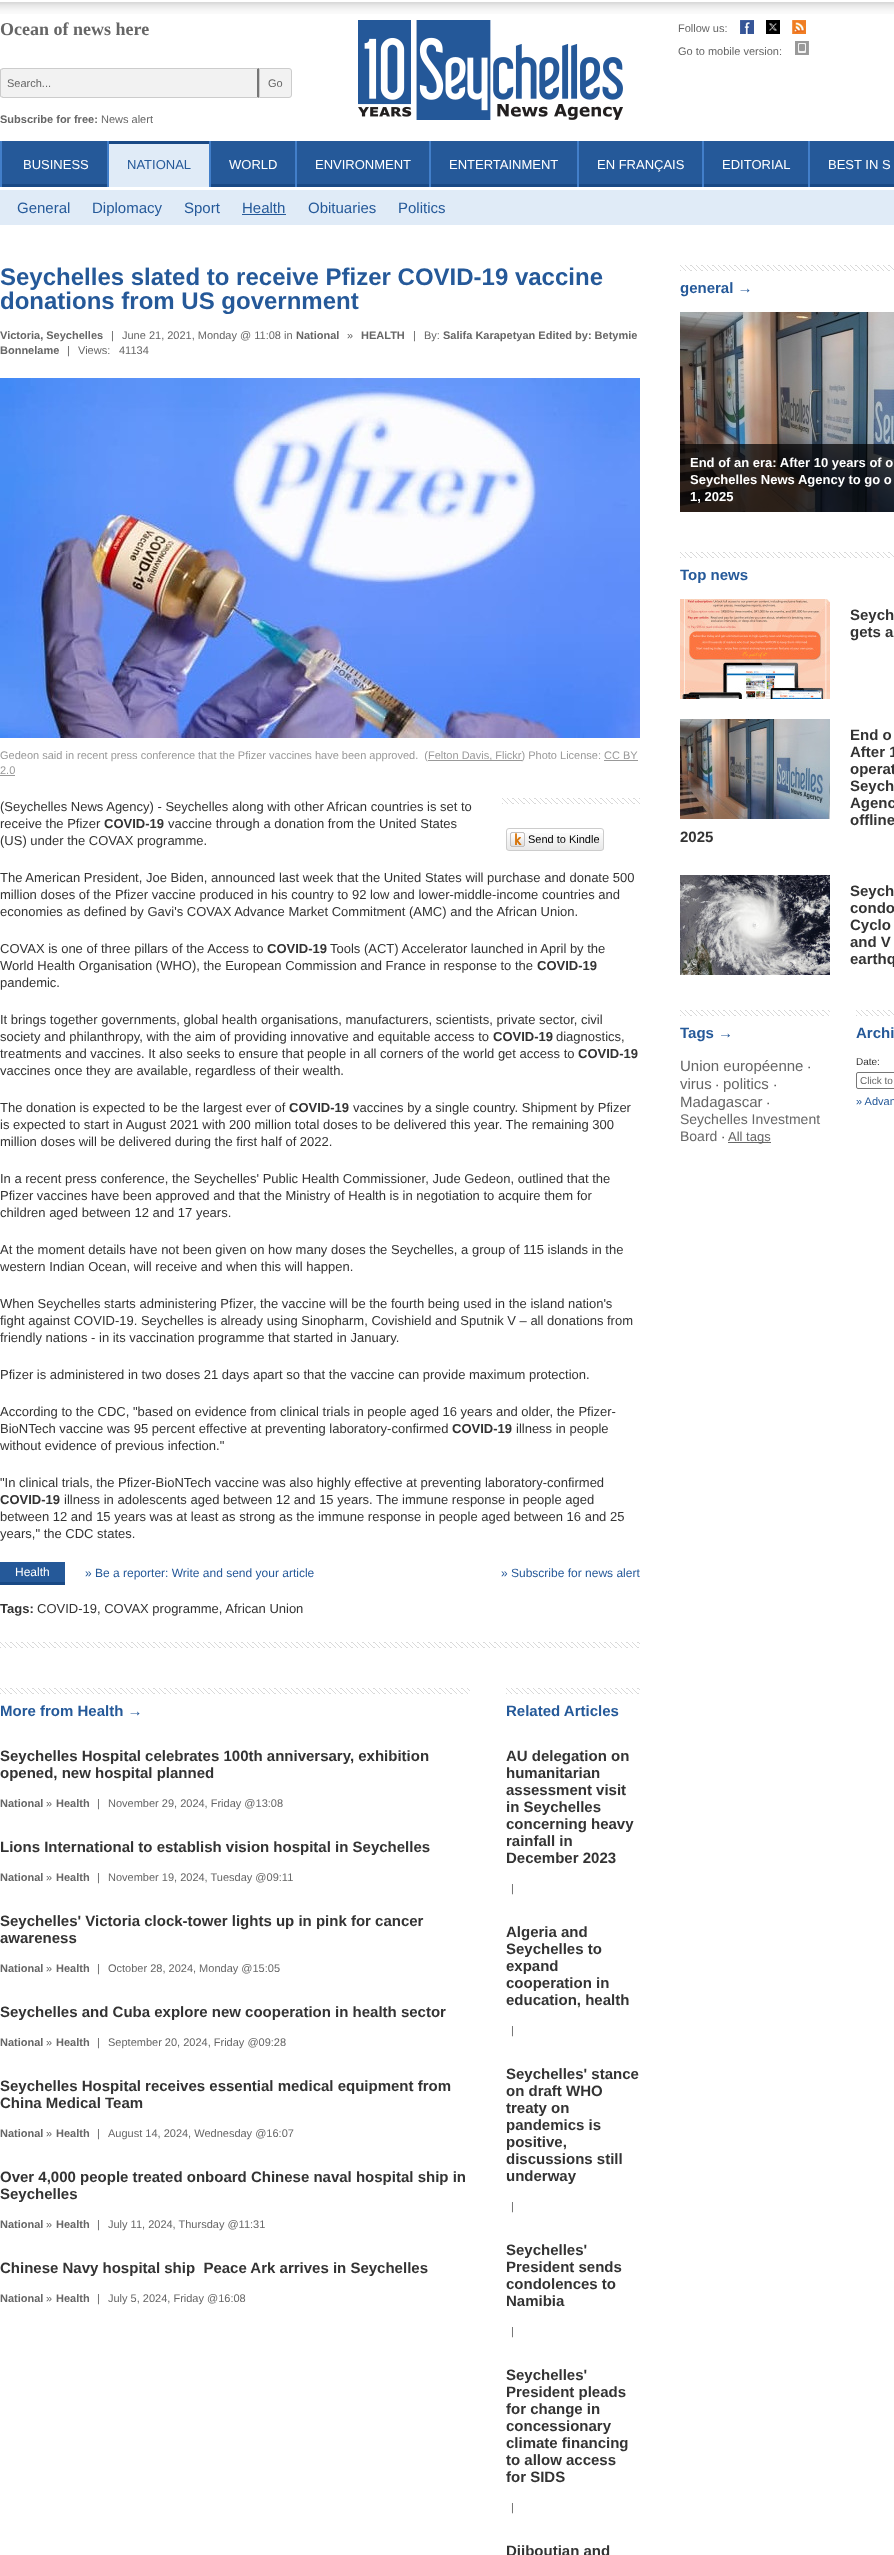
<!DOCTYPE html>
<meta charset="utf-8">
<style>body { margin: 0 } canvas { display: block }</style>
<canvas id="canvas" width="894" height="2555"></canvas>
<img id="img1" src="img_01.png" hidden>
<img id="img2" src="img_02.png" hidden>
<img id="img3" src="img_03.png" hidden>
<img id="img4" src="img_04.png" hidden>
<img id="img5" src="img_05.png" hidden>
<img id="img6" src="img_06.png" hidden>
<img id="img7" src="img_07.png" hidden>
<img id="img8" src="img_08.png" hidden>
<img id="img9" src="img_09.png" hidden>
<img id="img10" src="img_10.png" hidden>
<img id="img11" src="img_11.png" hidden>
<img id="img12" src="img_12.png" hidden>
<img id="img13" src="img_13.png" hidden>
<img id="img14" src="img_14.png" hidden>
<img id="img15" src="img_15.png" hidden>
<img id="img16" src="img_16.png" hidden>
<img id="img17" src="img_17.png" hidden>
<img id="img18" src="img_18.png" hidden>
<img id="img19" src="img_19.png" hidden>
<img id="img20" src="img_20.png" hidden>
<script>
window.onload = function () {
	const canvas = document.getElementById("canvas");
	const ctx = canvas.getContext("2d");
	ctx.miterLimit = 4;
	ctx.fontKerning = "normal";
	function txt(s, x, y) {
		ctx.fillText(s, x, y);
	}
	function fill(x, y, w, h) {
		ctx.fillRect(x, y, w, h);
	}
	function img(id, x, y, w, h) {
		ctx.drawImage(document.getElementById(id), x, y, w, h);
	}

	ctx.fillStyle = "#FFFFFF";
	fill(0, 0, 894, 2555);
	img("img1", 0, 2, 894, 12);
	ctx.fillStyle = "#F2F2F2";
	ctx.beginPath();
	ctx.roundRect(0, 68, 259, 30, [3, 0, 0, 3]);
	ctx.fill();
	ctx.fillStyle = "#CCCCCC";
	ctx.beginPath();
	ctx.moveTo(3, 68);
	ctx.lineTo(1, 69);
	ctx.lineTo(2, 70);
	ctx.lineTo(3, 69);
	ctx.lineTo(257, 69);
	ctx.lineTo(259, 68);
	ctx.closePath();
	ctx.fill();
	ctx.fillStyle = "#767676";
	ctx.beginPath();
	ctx.moveTo(259, 68);
	ctx.lineTo(257, 69);
	ctx.lineTo(257, 97);
	ctx.lineTo(259, 98);
	ctx.closePath();
	ctx.fill();
	ctx.fillStyle = "#CCCCCC";
	ctx.beginPath();
	ctx.moveTo(259, 98);
	ctx.lineTo(257, 97);
	ctx.lineTo(3, 97);
	ctx.lineTo(2, 96);
	ctx.lineTo(1, 97);
	ctx.lineTo(3, 98);
	ctx.closePath();
	ctx.fill();
	ctx.beginPath();
	ctx.moveTo(0, 71);
	ctx.lineTo(0, 95);
	ctx.bezierCurveTo(0, 96, 0, 97, 1, 97);
	ctx.lineTo(1.5, 96.5);
	ctx.bezierCurveTo(1, 96, 1, 95.5, 1, 95);
	ctx.lineTo(1, 71);
	ctx.bezierCurveTo(1, 70.5, 1, 70, 1.5, 69.5);
	ctx.lineTo(1, 69);
	ctx.bezierCurveTo(0, 69, 0, 70, 0, 71);
	ctx.closePath();
	ctx.fill();
	ctx.fillStyle = "#F2F2F2";
	ctx.beginPath();
	ctx.roundRect(259.5, 68.5, 32, 29, [0, 2.5, 2.5, 0]);
	ctx.fill();
	ctx.strokeStyle = "#CCCCCC";
	ctx.stroke();
	img("img2", 358, 20, 265, 100);
	img("img3", 740, 20, 14, 14);
	img("img4", 766, 20, 14, 14);
	img("img5", 792, 20, 14, 14);
	img("img6", 795, 41, 14, 14);
	ctx.fillStyle = "#427FCA";
	fill(0, 141, 810, 46);
	ctx.fillStyle = "#255999";
	fill(2, 141, 105, 43);
	ctx.fillStyle = "#194985";
	fill(2, 184, 105, 3);
	ctx.fillStyle = "#E0EBF7";
	fill(109, 144, 100, 43);
	ctx.fillStyle = "#194985";
	fill(109, 141, 100, 3);
	ctx.fillStyle = "#255999";
	fill(211, 141, 84, 43);
	ctx.fillStyle = "#194985";
	fill(211, 184, 84, 3);
	ctx.fillStyle = "#255999";
	fill(297, 141, 132, 43);
	ctx.fillStyle = "#194985";
	fill(297, 184, 132, 3);
	ctx.fillStyle = "#255999";
	fill(431, 141, 146, 43);
	ctx.fillStyle = "#194985";
	fill(431, 184, 146, 3);
	ctx.fillStyle = "#255999";
	fill(579, 141, 123, 43);
	ctx.fillStyle = "#194985";
	fill(579, 184, 123, 3);
	ctx.fillStyle = "#255999";
	fill(704, 141, 104, 43);
	ctx.fillStyle = "#194985";
	fill(704, 184, 104, 3);
	ctx.fillStyle = "#255999";
	fill(810, 141, 84, 43);
	ctx.fillStyle = "#194985";
	fill(810, 184, 84, 3);
	ctx.fillStyle = "#E0EBF7";
	fill(0, 190, 894, 35);
	ctx.fillStyle = "#255999";
	fill(242, 214, 44, 1);
	img("img7", 0, 378, 640, 360);
	ctx.fillStyle = "#999999";
	fill(428, 760, 94, 1);
	fill(604, 760, 34, 1);
	fill(0, 775, 15, 1);
	img("img8", 502, 798, 138, 6);
	img("img9", 506, 833, 98, 17);
	ctx.beginPath();
	ctx.roundRect(506.5, 828.5, 97, 22, 2.5);
	ctx.stroke();
	img("img10", 510, 832, 15, 15);
	ctx.fillStyle = "#255999";
	fill(0, 1562, 65, 20);
	ctx.fillStyle = "#194985";
	fill(0, 1582, 65, 3);
	img("img11", 0, 1642, 640, 6);
	img("img12", 0, 1688, 470, 6);
	img("img13", 506, 1688, 134, 6);
	img("img14", 680, 265, 214, 6);
	img("img15", 680, 312, 214, 200);
	ctx.fillStyle = "rgba(0, 0, 0, 0.7)";
	fill(680, 444, 214, 68);
	img("img14", 680, 552, 214, 6);
	img("img16", 680, 599, 150, 100);
	img("img17", 680, 719, 150, 100);
	img("img18", 680, 875, 150, 100);
	img("img19", 680, 1010, 150, 6);
	ctx.fillStyle = "#666666";
	fill(728, 1142, 43, 1);
	img("img20", 856, 1010, 38, 6);
	ctx.beginPath();
	ctx.roundRect(856.5, 1072.5, 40, 16, 1.5);
	ctx.strokeStyle = "#767676";
	ctx.stroke();
	ctx.font = "bold 18px Liberation Serif";
	txt("Ocean of news here", 0, 35);
	ctx.font = "11px Liberation Sans";
	txt("Search...", 7, 87);
	txt("Go", 268, 87);
	ctx.font = "bold 11px Liberation Sans";
	txt("Subscribe for free:", 0, 123);
	ctx.font = "11px Liberation Sans";
	txt("News alert", 101, 123);
	txt("Follow us:", 678, 32);
	txt("Go to mobile version:", 678, 55);
	ctx.font = "13px Liberation Sans";
	ctx.fillStyle = "#FFFFFF";
	txt("BUSINESS", 23, 169);
	ctx.fillStyle = "#255999";
	txt("NATIONAL", 127, 169);
	ctx.fillStyle = "#FFFFFF";
	txt("WORLD", 229, 169);
	txt("ENVIRONMENT", 315, 169);
	txt("ENTERTAINMENT", 449, 169);
	txt("EN FRANÇAIS", 597, 169);
	txt("EDITORIAL", 722, 169);
	txt("BEST IN S", 828, 169);
	ctx.font = "15px Liberation Sans";
	ctx.fillStyle = "#255999";
	txt("General", 17, 213);
	txt("Diplomacy", 92, 213);
	txt("Sport", 184, 213);
	txt("Health", 242, 213);
	txt("Obituaries", 308, 213);
	txt("Politics", 398, 213);
	ctx.font = "bold 24px Liberation Sans";
	txt("Seychelles slated to receive Pfizer COVID-19 vaccine", 0, 285);
	txt("donations from US government", 0, 309);
	ctx.font = "bold 11px Liberation Sans";
	ctx.fillStyle = "#666666";
	txt("Victoria, Seychelles", 0, 339);
	ctx.font = "11px Liberation Sans";
	txt("|", 111, 339);
	txt("June 21, 2021, Monday @ 11:08 in", 122, 339);
	ctx.font = "bold 11px Liberation Sans";
	txt("National", 296, 339);
	ctx.font = "11px Liberation Sans";
	txt("»", 347, 339);
	ctx.font = "bold 11px Liberation Sans";
	txt("HEALTH", 361, 339);
	ctx.font = "11px Liberation Sans";
	txt("|", 413, 339);
	txt("By:", 424, 339);
	ctx.font = "bold 11px Liberation Sans";
	txt("Salifa Karapetyan Edited by: Betymie", 443, 339);
	txt("Bonnelame", 0, 354);
	ctx.font = "11px Liberation Sans";
	txt("|", 67, 354);
	txt("Views:", 78, 354);
	txt("41134", 119, 354);
	ctx.fillStyle = "#999999";
	txt("Gedeon said in recent press conference that the Pfizer vaccines have been approved.  (", 0, 759);
	txt("Felton Davis, Flickr) Photo License: CC BY", 428, 759);
	txt("2.0", 0, 774);
	ctx.font = "13px Liberation Sans";
	ctx.fillStyle = "#333333";
	txt("(Seychelles News Agency) - Seychelles along with other African countries is set to", 0, 811);
	txt("receive the Pfizer", 0, 828);
	ctx.font = "bold 13px Liberation Sans";
	txt("COVID-19", 104, 828);
	ctx.font = "13px Liberation Sans";
	txt("vaccine through a donation from the United States", 168, 828);
	txt("(US) under the COVAX programme.", 0, 845);
	txt("The American President, Joe Biden, announced last week that the United States will purchase and donate 500", 0, 882);
	txt("million doses of the Pfizer vaccine produced in his country to 92 low and lower-middle-income countries and", 0, 899);
	txt("economies as defined by Gavi's COVAX Advance Market Commitment (AMC) and the African Union.", 0, 916);
	txt("COVAX is one of three pillars of the Access to", 0, 953);
	ctx.font = "bold 13px Liberation Sans";
	txt("COVID-19", 267, 953);
	ctx.font = "13px Liberation Sans";
	txt("Tools (ACT) Accelerator launched in April by the", 330, 953);
	txt("World Health Organisation (WHO), the European Commission and France in response to the", 0, 970);
	ctx.font = "bold 13px Liberation Sans";
	txt("COVID-19", 537, 970);
	ctx.font = "13px Liberation Sans";
	txt("pandemic.", 0, 987);
	txt("It brings together governments, global health organisations, manufacturers, scientists, private sector, civil", 0, 1024);
	txt("society and philanthropy, with the aim of providing innovative and equitable access to", 0, 1041);
	ctx.font = "bold 13px Liberation Sans";
	txt("COVID-19", 493, 1041);
	ctx.font = "13px Liberation Sans";
	txt("diagnostics,", 556, 1041);
	txt("treatments and vaccines. It also seeks to ensure that people in all corners of the world get access to", 0, 1058);
	ctx.font = "bold 13px Liberation Sans";
	txt("COVID-19", 578, 1058);
	ctx.font = "13px Liberation Sans";
	txt("vaccines once they are available, regardless of their wealth.", 0, 1075);
	txt("The donation is expected to be the largest ever of", 0, 1112);
	ctx.font = "bold 13px Liberation Sans";
	txt("COVID-19", 289, 1112);
	ctx.font = "13px Liberation Sans";
	txt("vaccines by a single country. Shipment by Pfizer", 353, 1112);
	txt("is expected to start in August 2021 with 200 million total doses to be delivered this year. The remaining 300", 0, 1129);
	txt("million doses will be delivered during the first half of 2022.", 0, 1146);
	txt("In a recent press conference, the Seychelles' Public Health Commissioner, Jude Gedeon, outlined that the", 0, 1183);
	txt("Pfizer vaccines have been approved and that the Ministry of Health is in negotiation to acquire them for", 0, 1200);
	txt("children aged between 12 and 17 years.", 0, 1217);
	txt("At the moment details have not been given on how many doses the Seychelles, a group of 115 islands in the", 0, 1254);
	txt("western Indian Ocean, will receive and when this will happen.", 0, 1271);
	txt("When Seychelles starts administering Pfizer, the vaccine will be the fourth being used in the island nation's", 0, 1308);
	txt("fight against COVID-19. Seychelles is already using Sinopharm, Covishield and Sputnik V – all donations from", 0, 1325);
	txt("friendly nations - in its vaccination programme that started in January.", 0, 1342);
	txt("Pfizer is administered in two doses 21 days apart so that the vaccine can provide maximum protection.", 0, 1379);
	txt("According to the CDC, \"based on evidence from clinical trials in people aged 16 years and older, the Pfizer-", 0, 1416);
	txt("BioNTech vaccine was 95 percent effective at preventing laboratory-confirmed", 0, 1433);
	ctx.font = "bold 13px Liberation Sans";
	txt("COVID-19", 452, 1433);
	ctx.font = "13px Liberation Sans";
	txt("illness in people", 516, 1433);
	txt("without evidence of previous infection.\"", 0, 1450);
	txt("\"In clinical trials, the Pfizer-BioNTech vaccine was also highly effective at preventing laboratory-confirmed", 0, 1487);
	ctx.font = "bold 13px Liberation Sans";
	txt("COVID-19", 0, 1504);
	ctx.font = "13px Liberation Sans";
	txt("illness in adolescents aged between 12 and 15 years. The immune response in people aged", 64, 1504);
	txt("between 12 and 15 years was at least as strong as the immune response in people aged between 16 and 25", 0, 1521);
	txt("years,\" the CDC states.", 0, 1538);
	ctx.font = "11px Liberation Sans";
	ctx.fillStyle = "#000000";
	txt("Send to Kindle", 528, 843);
	ctx.font = "12px Liberation Sans";
	ctx.fillStyle = "#FFFFFF";
	txt("Health", 15, 1576);
	ctx.fillStyle = "#255999";
	txt("» Be a reporter: Write and send your article", 85, 1577);
	txt("» Subscribe for news alert", 501, 1577);
	ctx.font = "bold 13px Liberation Sans";
	ctx.fillStyle = "#333333";
	txt("Tags:", 0, 1613);
	ctx.font = "13px Liberation Sans";
	txt("COVID-19, COVAX programme, African Union", 37, 1613);
	ctx.font = "bold 15px Liberation Sans";
	ctx.fillStyle = "#255999";
	txt("More from Health →", 0, 1716);
	ctx.fillStyle = "#333333";
	txt("Seychelles Hospital celebrates 100th anniversary, exhibition", 0, 1761);
	txt("opened, new hospital planned", 0, 1778);
	ctx.font = "bold 11px Liberation Sans";
	ctx.fillStyle = "#666666";
	txt("National", 0, 1807);
	ctx.font = "11px Liberation Sans";
	txt("»", 46, 1807);
	ctx.font = "bold 11px Liberation Sans";
	txt("Health", 56, 1807);
	ctx.font = "11px Liberation Sans";
	txt("|", 97, 1807);
	txt("November 29, 2024, Friday @13:08", 108, 1807);
	ctx.font = "bold 15px Liberation Sans";
	ctx.fillStyle = "#333333";
	txt("Lions International to establish vision hospital in Seychelles", 0, 1852);
	ctx.font = "bold 11px Liberation Sans";
	ctx.fillStyle = "#666666";
	txt("National", 0, 1881);
	ctx.font = "11px Liberation Sans";
	txt("»", 46, 1881);
	ctx.font = "bold 11px Liberation Sans";
	txt("Health", 56, 1881);
	ctx.font = "11px Liberation Sans";
	txt("|", 97, 1881);
	txt("November 19, 2024, Tuesday @09:11", 108, 1881);
	ctx.font = "bold 15px Liberation Sans";
	ctx.fillStyle = "#333333";
	txt("Seychelles' Victoria clock-tower lights up in pink for cancer", 0, 1926);
	txt("awareness", 0, 1943);
	ctx.font = "bold 11px Liberation Sans";
	ctx.fillStyle = "#666666";
	txt("National", 0, 1972);
	ctx.font = "11px Liberation Sans";
	txt("»", 46, 1972);
	ctx.font = "bold 11px Liberation Sans";
	txt("Health", 56, 1972);
	ctx.font = "11px Liberation Sans";
	txt("|", 97, 1972);
	txt("October 28, 2024, Monday @15:05", 108, 1972);
	ctx.font = "bold 15px Liberation Sans";
	ctx.fillStyle = "#333333";
	txt("Seychelles and Cuba explore new cooperation in health sector", 0, 2017);
	ctx.font = "bold 11px Liberation Sans";
	ctx.fillStyle = "#666666";
	txt("National", 0, 2046);
	ctx.font = "11px Liberation Sans";
	txt("»", 46, 2046);
	ctx.font = "bold 11px Liberation Sans";
	txt("Health", 56, 2046);
	ctx.font = "11px Liberation Sans";
	txt("|", 97, 2046);
	txt("September 20, 2024, Friday @09:28", 108, 2046);
	ctx.font = "bold 15px Liberation Sans";
	ctx.fillStyle = "#333333";
	txt("Seychelles Hospital receives essential medical equipment from", 0, 2091);
	txt("China Medical Team", 0, 2108);
	ctx.font = "bold 11px Liberation Sans";
	ctx.fillStyle = "#666666";
	txt("National", 0, 2137);
	ctx.font = "11px Liberation Sans";
	txt("»", 46, 2137);
	ctx.font = "bold 11px Liberation Sans";
	txt("Health", 56, 2137);
	ctx.font = "11px Liberation Sans";
	txt("|", 97, 2137);
	txt("August 14, 2024, Wednesday @16:07", 108, 2137);
	ctx.font = "bold 15px Liberation Sans";
	ctx.fillStyle = "#333333";
	txt("Over 4,000 people treated onboard Chinese naval hospital ship in", 0, 2182);
	txt("Seychelles", 0, 2199);
	ctx.font = "bold 11px Liberation Sans";
	ctx.fillStyle = "#666666";
	txt("National", 0, 2228);
	ctx.font = "11px Liberation Sans";
	txt("»", 46, 2228);
	ctx.font = "bold 11px Liberation Sans";
	txt("Health", 56, 2228);
	ctx.font = "11px Liberation Sans";
	txt("|", 97, 2228);
	txt("July 11, 2024, Thursday @11:31", 108, 2228);
	ctx.font = "bold 15px Liberation Sans";
	ctx.fillStyle = "#333333";
	txt("Chinese Navy hospital ship  Peace Ark arrives in Seychelles", 0, 2273);
	ctx.font = "bold 11px Liberation Sans";
	ctx.fillStyle = "#666666";
	txt("National", 0, 2302);
	ctx.font = "11px Liberation Sans";
	txt("»", 46, 2302);
	ctx.font = "bold 11px Liberation Sans";
	txt("Health", 56, 2302);
	ctx.font = "11px Liberation Sans";
	txt("|", 97, 2302);
	txt("July 5, 2024, Friday @16:08", 108, 2302);
	ctx.font = "bold 15px Liberation Sans";
	ctx.fillStyle = "#255999";
	txt("Related Articles", 506, 1716);
	ctx.fillStyle = "#333333";
	txt("AU delegation on", 506, 1761);
	txt("humanitarian", 506, 1778);
	txt("assessment visit", 506, 1795);
	txt("in Seychelles", 506, 1812);
	txt("concerning heavy", 506, 1829);
	txt("rainfall in", 506, 1846);
	txt("December 2023", 506, 1863);
	ctx.font = "11px Liberation Sans";
	ctx.fillStyle = "#666666";
	txt("|", 511, 1892);
	ctx.font = "bold 15px Liberation Sans";
	ctx.fillStyle = "#333333";
	txt("Algeria and", 506, 1937);
	txt("Seychelles to", 506, 1954);
	txt("expand", 506, 1971);
	txt("cooperation in", 506, 1988);
	txt("education, health", 506, 2005);
	ctx.font = "11px Liberation Sans";
	ctx.fillStyle = "#666666";
	txt("|", 511, 2034);
	ctx.font = "bold 15px Liberation Sans";
	ctx.fillStyle = "#333333";
	txt("Seychelles' stance", 506, 2079);
	txt("on draft WHO", 506, 2096);
	txt("treaty on", 506, 2113);
	txt("pandemics is", 506, 2130);
	txt("positive,", 506, 2147);
	txt("discussions still", 506, 2164);
	txt("underway", 506, 2181);
	ctx.font = "11px Liberation Sans";
	ctx.fillStyle = "#666666";
	txt("|", 511, 2210);
	ctx.font = "bold 15px Liberation Sans";
	ctx.fillStyle = "#333333";
	txt("Seychelles'", 506, 2255);
	txt("President sends", 506, 2272);
	txt("condolences to", 506, 2289);
	txt("Namibia", 506, 2306);
	ctx.font = "11px Liberation Sans";
	ctx.fillStyle = "#666666";
	txt("|", 511, 2335);
	ctx.font = "bold 15px Liberation Sans";
	ctx.fillStyle = "#333333";
	txt("Seychelles'", 506, 2380);
	txt("President pleads", 506, 2397);
	txt("for change in", 506, 2414);
	txt("concessionary", 506, 2431);
	txt("climate financing", 506, 2448);
	txt("to allow access", 506, 2465);
	txt("for SIDS", 506, 2482);
	ctx.font = "11px Liberation Sans";
	ctx.fillStyle = "#666666";
	txt("|", 511, 2511);
	ctx.font = "bold 15px Liberation Sans";
	ctx.fillStyle = "#333333";
	txt("Djiboutian and", 506, 2556);
	ctx.fillStyle = "#255999";
	txt("general →", 680, 293);
	ctx.font = "bold 13px Liberation Sans";
	ctx.fillStyle = "#FFFFFF";
	txt("End of an era: After 10 years of o", 690, 467);
	txt("Seychelles News Agency to go o", 690, 484);
	txt("1, 2025", 690, 501);
	ctx.font = "bold 15px Liberation Sans";
	ctx.fillStyle = "#255999";
	txt("Top news", 680, 580);
	ctx.fillStyle = "#333333";
	txt("Seych", 850, 620);
	txt("gets a", 850, 637);
	txt("End o", 850, 740);
	txt("After 1", 850, 757);
	txt("operat", 850, 774);
	txt("Seych", 850, 791);
	txt("Agenc", 850, 808);
	txt("offline", 850, 825);
	txt("2025", 680, 842);
	txt("Seych", 850, 896);
	txt("condo", 850, 913);
	txt("Cyclo", 850, 930);
	txt("and V", 850, 947);
	txt("earthq", 850, 964);
	ctx.fillStyle = "#255999";
	txt("Tags →", 680, 1038);
	ctx.font = "15px Liberation Sans";
	ctx.fillStyle = "#666666";
	txt("Union européenne", 680, 1071);
	ctx.font = "13px Liberation Sans";
	ctx.fillStyle = "#333333";
	txt("·", 807, 1071);
	ctx.font = "15px Liberation Sans";
	ctx.fillStyle = "#666666";
	txt("virus", 680, 1089);
	ctx.font = "13px Liberation Sans";
	ctx.fillStyle = "#333333";
	txt("·", 715, 1089);
	ctx.font = "15px Liberation Sans";
	ctx.fillStyle = "#666666";
	txt("politics", 723, 1089);
	ctx.font = "13px Liberation Sans";
	ctx.fillStyle = "#333333";
	txt("·", 773, 1089);
	ctx.font = "15px Liberation Sans";
	ctx.fillStyle = "#666666";
	txt("Madagascar", 680, 1107);
	ctx.font = "13px Liberation Sans";
	ctx.fillStyle = "#333333";
	txt("·", 766, 1107);
	ctx.font = "14px Liberation Sans";
	ctx.fillStyle = "#666666";
	txt("Seychelles Investment", 680, 1124);
	txt("Board", 680, 1141);
	ctx.font = "13px Liberation Sans";
	ctx.fillStyle = "#333333";
	txt("·", 721, 1141);
	ctx.fillStyle = "#666666";
	txt("All tags", 728, 1141);
	ctx.font = "bold 15px Liberation Sans";
	ctx.fillStyle = "#255999";
	txt("Archi", 856, 1038);
	ctx.font = "10px Liberation Sans";
	ctx.fillStyle = "#333333";
	txt("Date:", 856, 1065);
	ctx.fillStyle = "#666666";
	txt("Click to", 860, 1084);
	ctx.font = "11px Liberation Sans";
	ctx.fillStyle = "#255999";
	txt("» Advan", 856, 1105);
};
</script>
